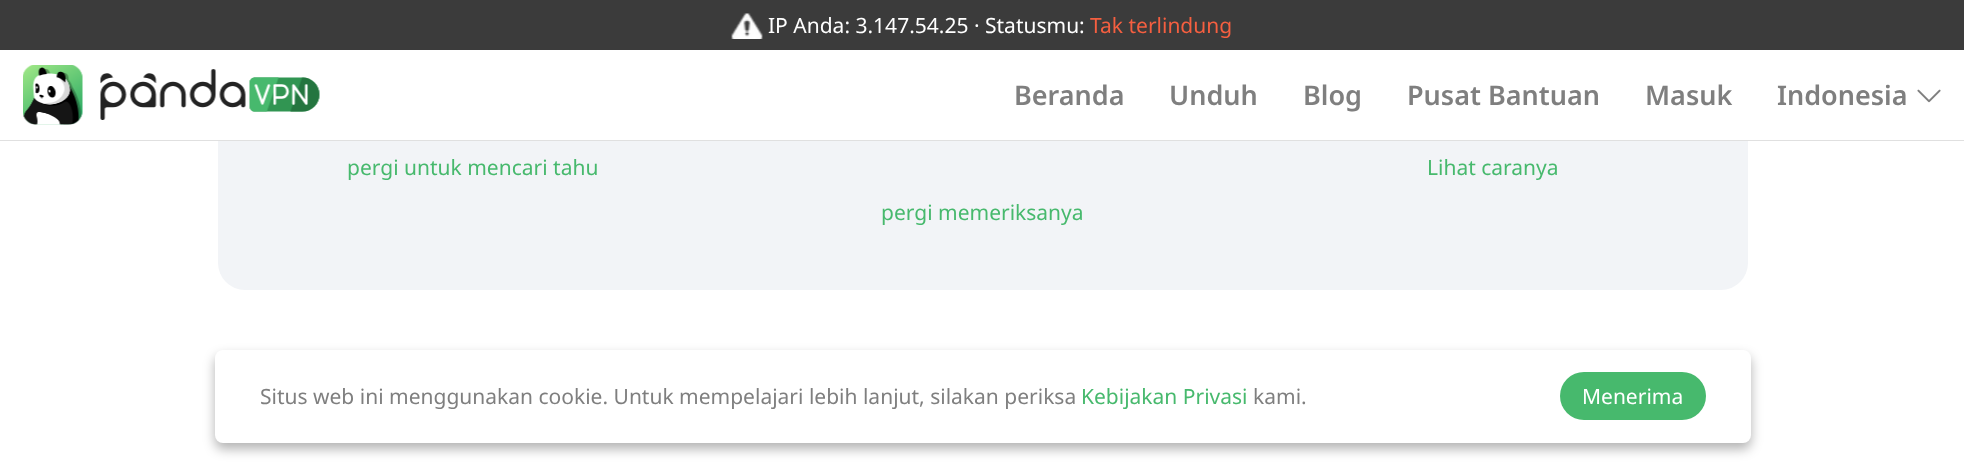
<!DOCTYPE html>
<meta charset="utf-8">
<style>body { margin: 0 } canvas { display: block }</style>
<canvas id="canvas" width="1964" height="465"></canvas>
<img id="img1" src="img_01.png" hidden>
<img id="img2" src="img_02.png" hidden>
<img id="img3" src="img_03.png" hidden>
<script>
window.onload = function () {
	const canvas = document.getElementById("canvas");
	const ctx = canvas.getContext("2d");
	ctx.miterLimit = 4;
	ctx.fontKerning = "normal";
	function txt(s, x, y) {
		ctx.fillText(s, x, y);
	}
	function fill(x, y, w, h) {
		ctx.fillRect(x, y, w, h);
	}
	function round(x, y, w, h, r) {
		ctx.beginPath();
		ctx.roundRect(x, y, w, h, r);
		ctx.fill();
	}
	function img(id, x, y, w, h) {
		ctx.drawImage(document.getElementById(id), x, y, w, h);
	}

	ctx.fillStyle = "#FFFFFF";
	fill(0, 0, 1964, 465);
	ctx.fillStyle = "#F2F4F7";
	round(218, -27, 1530, 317, 27);
	ctx.fillStyle = "#FFFFFF";
	fill(218, 50, 1530, 90);
	ctx.fillStyle = "#3B3B3B";
	fill(0, 0, 1964, 50);
	img("img1", 731, 13, 32, 26);
	ctx.fillStyle = "#E0E0E0";
	fill(0, 140, 1964, 1);
	img("img2", 23, 65, 297, 60);
	img("img3", 1917, 89, 24, 14);
	ctx.fillStyle = "rgba(0, 0, 0, 0.3)";
	ctx.filter = "blur(6px)";
	ctx.beginPath();
	ctx.roundRect(215, 356, 1536, 93, 8);
	ctx.fill();
	ctx.filter = "none";
	ctx.fillStyle = "#FFFFFF";
	round(215, 350, 1536, 93, 8);
	ctx.fillStyle = "#47B96D";
	round(1560, 372, 146, 48, 24);
	ctx.font = "21px Noto Sans";
	ctx.fillStyle = "#FFFFFF";
	txt("IP Anda: 3.147.54.25 · Statusmu:", 768, 33);
	ctx.fillStyle = "#F55F40";
	txt("Tak terlindung", 1090, 33);
	ctx.font = "600 27px Noto Sans";
	ctx.fillStyle = "#7F7F7F";
	txt("Beranda", 1014, 105);
	txt("Unduh", 1169, 105);
	txt("Blog", 1303, 105);
	txt("Pusat Bantuan", 1407, 105);
	txt("Masuk", 1645, 105);
	txt("Indonesia", 1777, 105);
	ctx.font = "21px Noto Sans";
	ctx.fillStyle = "#47B96D";
	txt("pergi untuk mencari tahu", 347, 175);
	txt("Lihat caranya", 1427, 175);
	txt("pergi memeriksanya", 881, 220);
	ctx.fillStyle = "#7F7F7F";
	txt("Situs web ini menggunakan cookie. Untuk mempelajari lebih lanjut, silakan periksa", 260, 404);
	ctx.fillStyle = "#47B96D";
	txt("Kebijakan Privasi", 1081, 404);
	ctx.fillStyle = "#7F7F7F";
	txt("kami.", 1253, 404);
	ctx.fillStyle = "#FFFFFF";
	txt("Menerima", 1582, 404);
};
</script>
